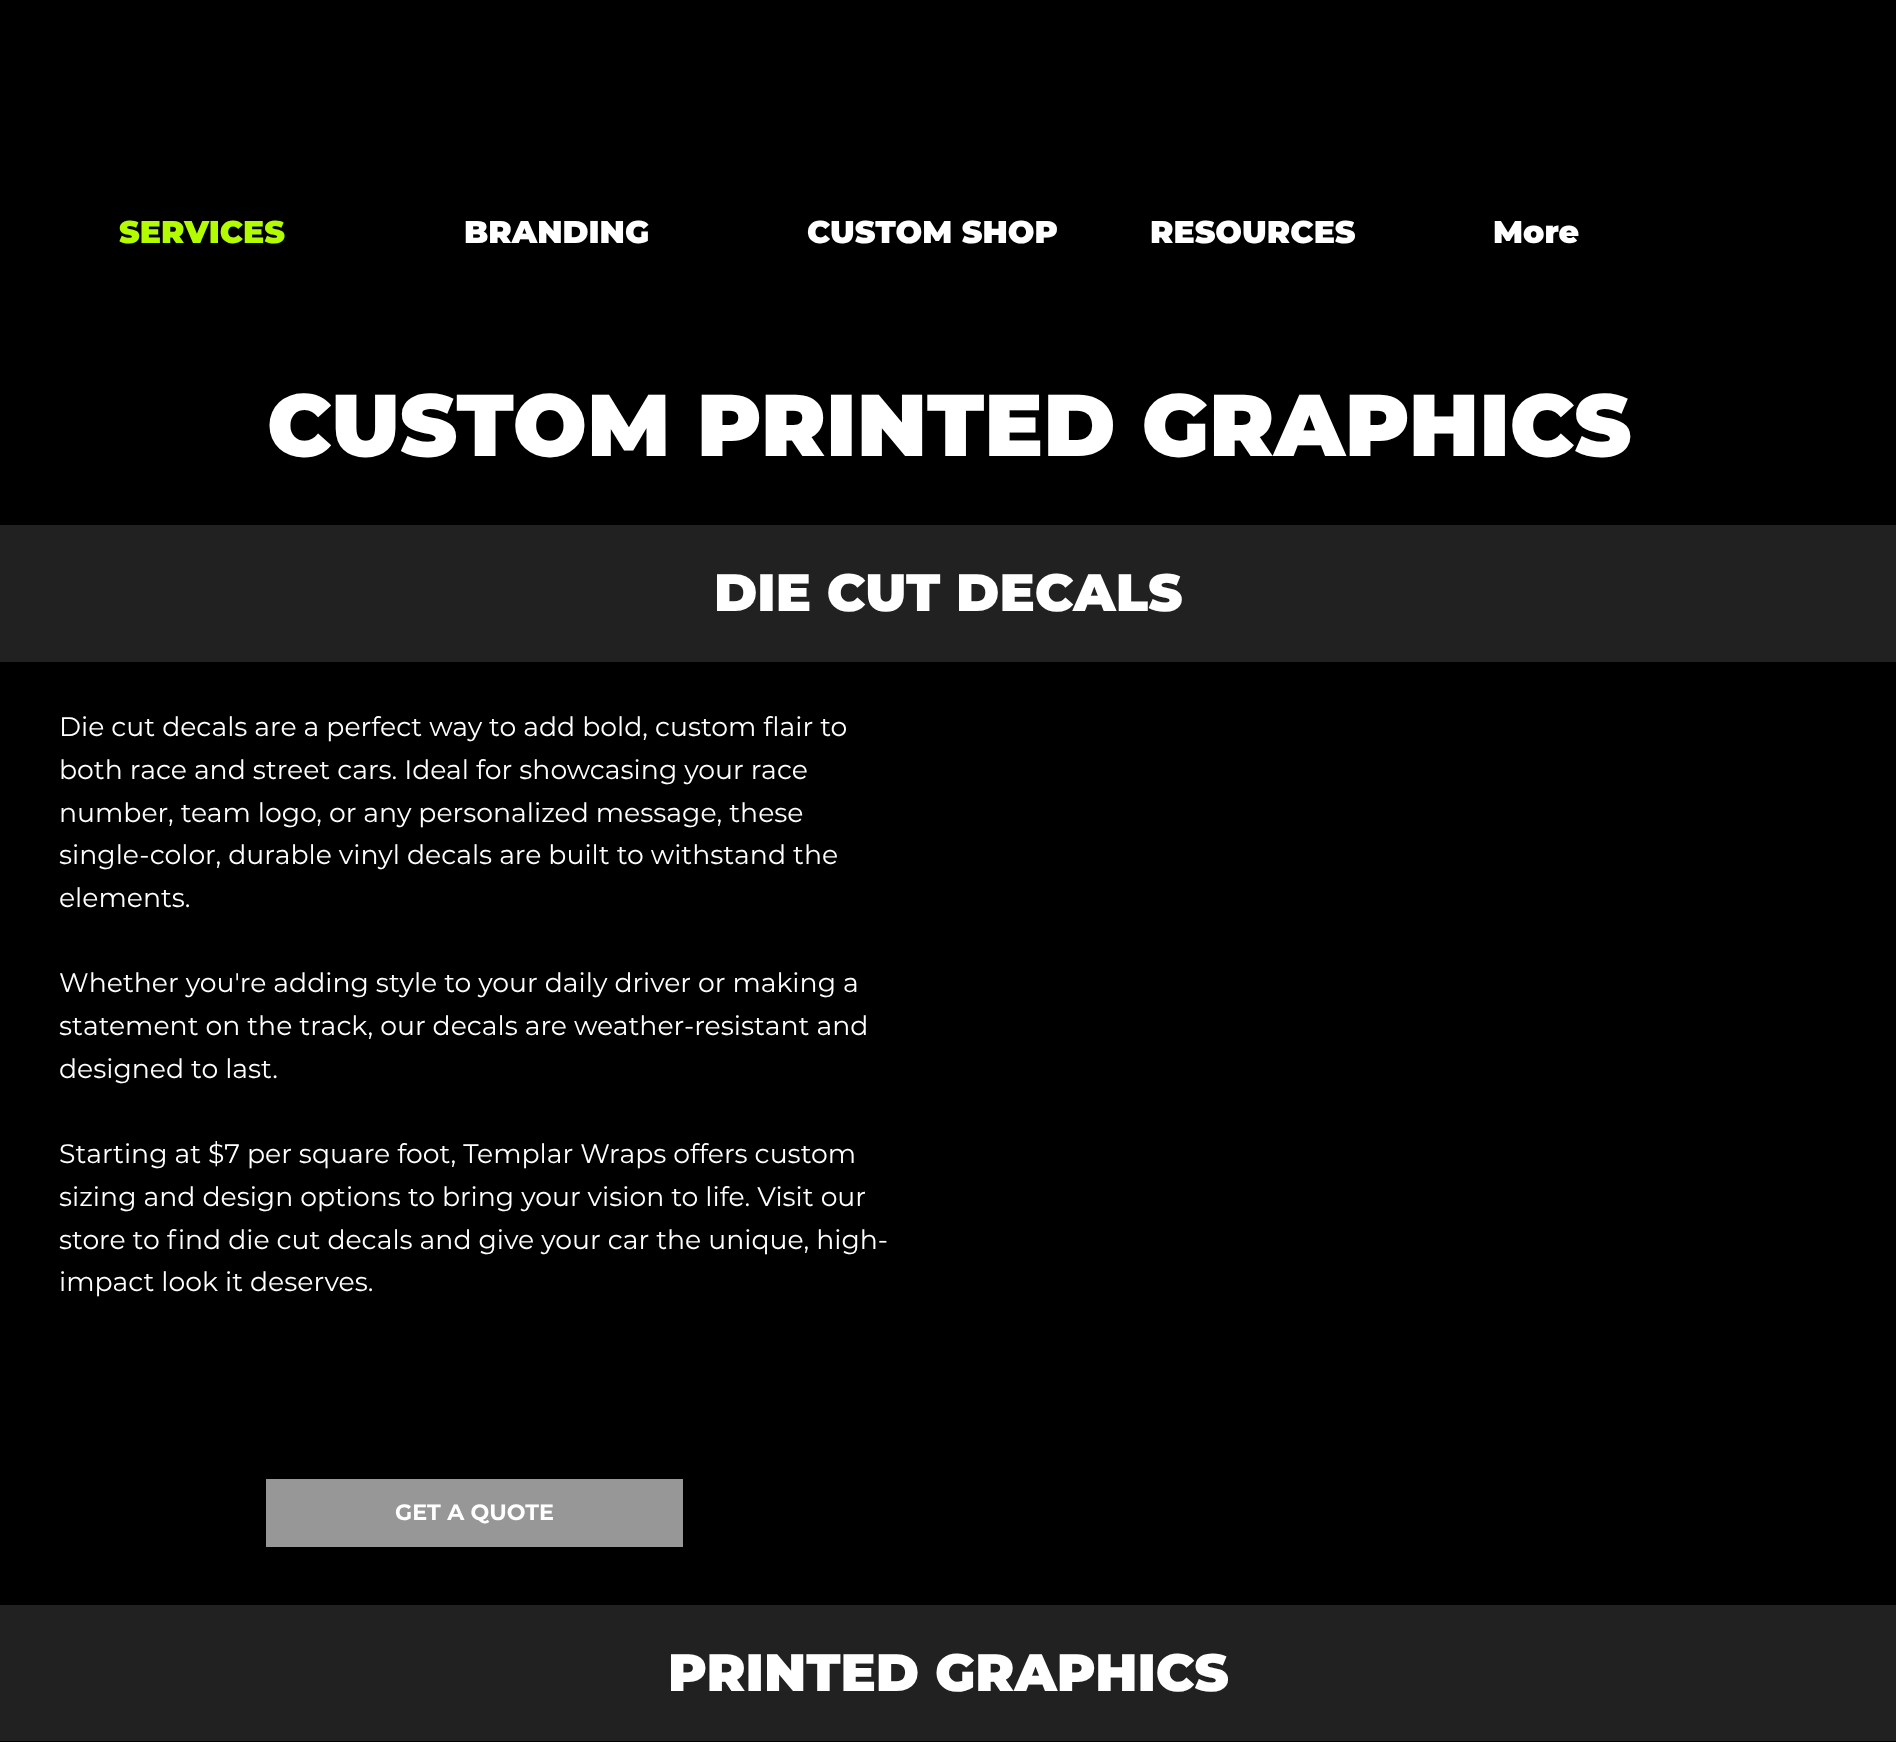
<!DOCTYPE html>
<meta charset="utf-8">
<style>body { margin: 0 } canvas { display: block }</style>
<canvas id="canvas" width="1896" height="1742"></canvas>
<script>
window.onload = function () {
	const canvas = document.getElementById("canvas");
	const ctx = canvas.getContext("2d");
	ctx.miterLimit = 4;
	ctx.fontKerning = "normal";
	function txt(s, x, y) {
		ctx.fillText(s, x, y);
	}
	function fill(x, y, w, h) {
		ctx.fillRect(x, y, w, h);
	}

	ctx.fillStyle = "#000000";
	fill(0, 0, 1896, 1742);
	ctx.fillStyle = "#212121";
	fill(0, 525, 1896, 137);
	ctx.fillStyle = "#979797";
	fill(266, 1479, 417, 68);
	ctx.fillStyle = "#212121";
	fill(0, 1605, 1896, 136);
	ctx.font = "100 31.5px Montserrat";
	ctx.fillStyle = "#B3FC00";
	txt("SERVICES", 119, 243);
	ctx.fillStyle = "#FFFFFF";
	txt("BRANDING", 464, 243);
	txt("CUSTOM SHOP", 807, 243);
	txt("RESOURCES", 1150, 243);
	txt("More", 1493, 243);
	ctx.font = "100 87.5px Montserrat";
	txt("CUSTOM PRINTED GRAPHICS", 267, 456);
	ctx.font = "100 52.5px Montserrat";
	txt("DIE CUT DECALS", 714, 611);
	ctx.font = "26.7px Montserrat";
	txt("Die cut decals are a perfect way to add bold, custom flair to", 59, 736);
	txt("both race and street cars. Ideal for showcasing your race", 59, 779);
	txt("number, team logo, or any personalized message, these", 59, 822);
	txt("single-color, durable vinyl decals are built to withstand the", 59, 864);
	txt("elements.", 59, 907);
	txt("Whether you're adding style to your daily driver or making a", 59, 992);
	txt("statement on the track, our decals are weather-resistant and", 59, 1035);
	txt("designed to last.", 59, 1078);
	txt("Starting at $7 per square foot, Templar Wraps offers custom", 59, 1163);
	txt("sizing and design options to bring your vision to life. Visit our", 59, 1206);
	txt("store to find die cut decals and give your car the unique, high-", 59, 1249);
	txt("impact look it deserves.", 59, 1291);
	ctx.font = "bold 22.25px Montserrat";
	txt("GET A QUOTE", 395, 1520);
	ctx.font = "100 52.5px Montserrat";
	txt("PRINTED GRAPHICS", 668, 1691);
};
</script>
